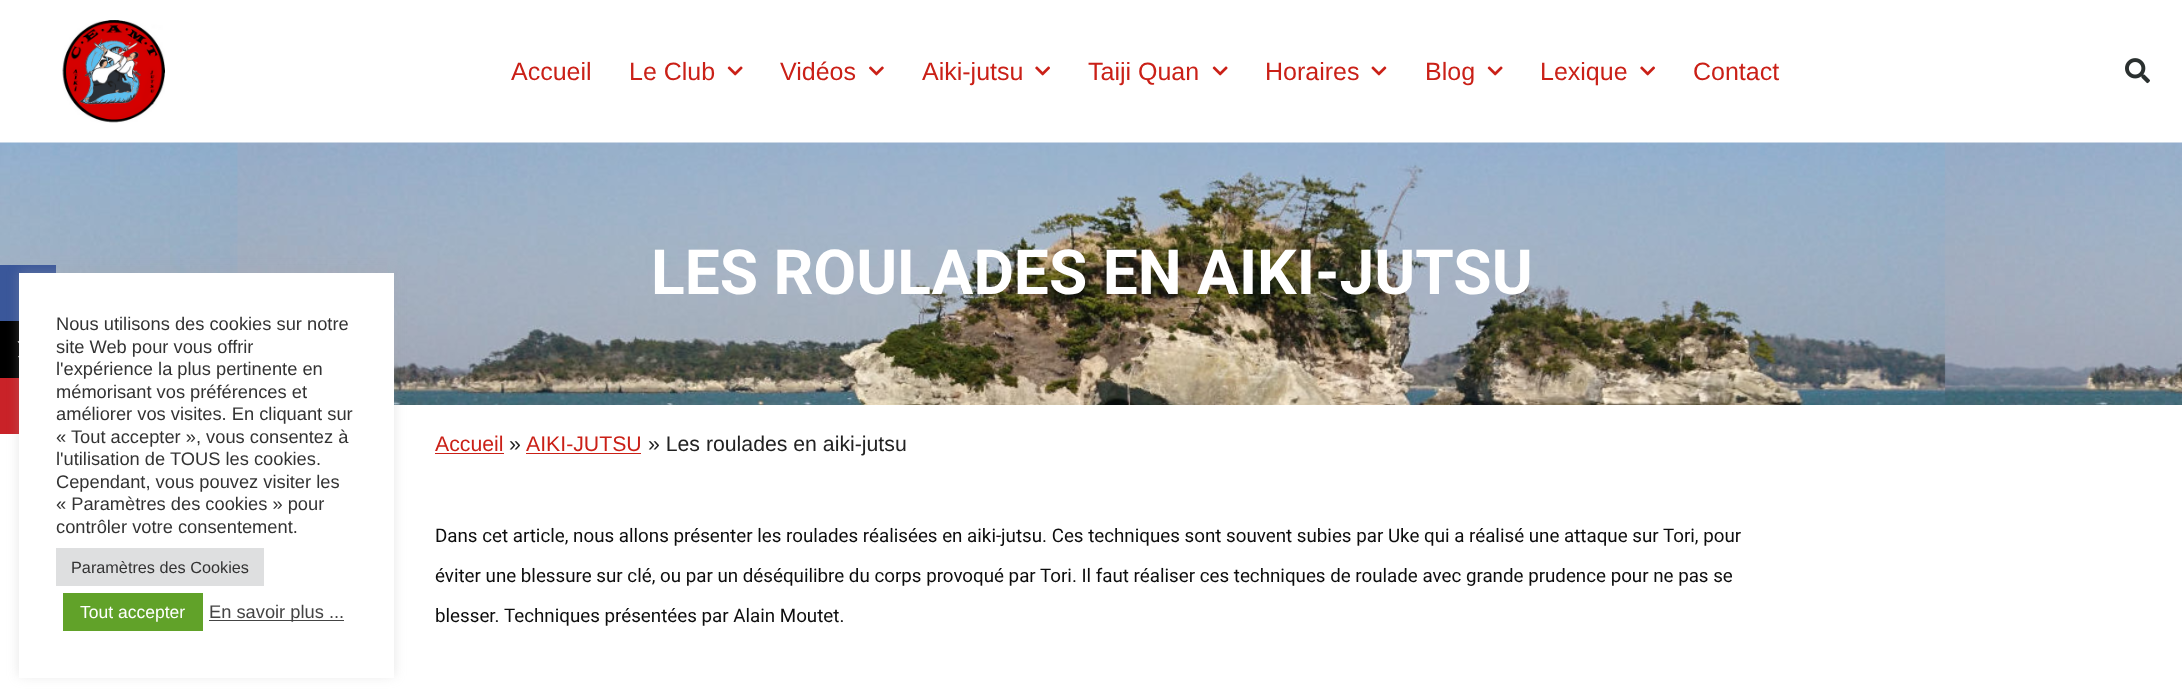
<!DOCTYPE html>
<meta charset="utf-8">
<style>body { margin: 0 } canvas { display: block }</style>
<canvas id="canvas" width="2182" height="696"></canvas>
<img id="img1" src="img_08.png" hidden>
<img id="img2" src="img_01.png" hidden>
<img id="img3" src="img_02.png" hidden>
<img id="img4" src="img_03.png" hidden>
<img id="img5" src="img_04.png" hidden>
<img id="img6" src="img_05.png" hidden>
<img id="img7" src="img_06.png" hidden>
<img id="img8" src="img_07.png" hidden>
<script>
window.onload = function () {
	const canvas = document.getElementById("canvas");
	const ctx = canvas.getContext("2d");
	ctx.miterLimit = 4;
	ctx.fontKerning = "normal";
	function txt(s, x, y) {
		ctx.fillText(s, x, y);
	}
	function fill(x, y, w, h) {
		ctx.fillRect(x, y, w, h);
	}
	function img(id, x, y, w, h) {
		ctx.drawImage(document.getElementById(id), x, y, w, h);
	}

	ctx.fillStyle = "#FFFFFF";
	fill(0, 0, 2182, 696);
	img("img1", 0, 142, 2182, 263);
	ctx.fillStyle = "#3A579A";
	fill(0, 265, 56, 56);
	ctx.fillStyle = "#000000";
	fill(0, 321, 19, 57);
	img("img2", 17, 341, 2, 17);
	ctx.fillStyle = "#C92228";
	fill(0, 378, 19, 56);
	ctx.fillStyle = "rgba(172, 171, 171, 0.3)";
	ctx.filter = "blur(6px)";
	ctx.beginPath();
	ctx.rect(19, 271, 375, 405);
	ctx.fill();
	ctx.filter = "none";
	ctx.fillStyle = "#FFFFFF";
	fill(19, 273, 375, 405);
	ctx.fillStyle = "#DEDFE0";
	fill(56, 548, 208, 38);
	ctx.fillStyle = "#61A229";
	fill(63, 593, 140, 38);
	ctx.fillStyle = "#444444";
	fill(209, 620, 135, 1);
	img("img3", 62, 20, 103, 103);
	img("img4", 727, 66, 16, 10);
	img("img5", 869, 66, 15, 10);
	img("img6", 1035, 66, 15, 10);
	img("img4", 1212, 66, 16, 10);
	img("img7", 1371, 66, 16, 10);
	img("img4", 1487, 66, 16, 10);
	img("img6", 1640, 66, 15, 10);
	img("img8", 2125, 58, 25, 26);
	ctx.fillStyle = "#CA2017";
	fill(435, 453, 69, 1);
	fill(526, 453, 115, 1);
	ctx.font = "18.3px Liberation Sans";
	ctx.fillStyle = "#333333";
	txt("Nous utilisons des cookies sur notre", 56, 330);
	txt("site Web pour vous offrir", 56, 353);
	txt("l'expérience la plus pertinente en", 56, 375);
	txt("mémorisant vos préférences et", 56, 398);
	txt("améliorer vos visites. En cliquant sur", 56, 420);
	txt("« Tout accepter », vous consentez à", 56, 443);
	txt("l'utilisation de TOUS les cookies.", 56, 465);
	txt("Cependant, vous pouvez visiter les", 56, 488);
	txt("« Paramètres des cookies » pour", 56, 510);
	txt("contrôler votre consentement.", 56, 533);
	ctx.font = "16.25px Liberation Sans";
	txt("Paramètres des Cookies", 71, 573);
	ctx.font = "17.5px Liberation Sans";
	ctx.fillStyle = "#FFFFFF";
	txt("Tout accepter", 80, 618);
	ctx.font = "18.3px Liberation Sans";
	ctx.fillStyle = "#444444";
	txt("En savoir plus ...", 209, 618);
	ctx.font = "25px Liberation Sans";
	ctx.fillStyle = "#CA2017";
	txt("Accueil", 511, 80);
	txt("Le Club", 629, 80);
	txt("Vidéos", 780, 80);
	txt("Aiki-jutsu", 922, 80);
	txt("Taiji Quan", 1088, 80);
	txt("Horaires", 1265, 80);
	txt("Blog", 1425, 80);
	txt("Lexique", 1540, 80);
	txt("Contact", 1693, 80);
	ctx.font = "bold 62.25px Roboto";
	ctx.fillStyle = "#FFFFFF";
	txt("LES ROULADES EN AIKI-JUTSU", 651, 294);
	ctx.font = "21.25px Liberation Sans";
	ctx.fillStyle = "#CA2017";
	txt("Accueil", 435, 451);
	ctx.fillStyle = "#222222";
	txt("»", 509, 451);
	ctx.fillStyle = "#CA2017";
	txt("AIKI-JUTSU", 526, 451);
	ctx.fillStyle = "#222222";
	txt("» Les roulades en aiki-jutsu", 648, 451);
	ctx.font = "18.75px Roboto";
	ctx.fillStyle = "#0D0D0D";
	txt("Dans cet article, nous allons présenter les roulades réalisées en aiki-jutsu. Ces techniques sont souvent subies par Uke qui a réalisé une attaque sur Tori, pour", 435, 542);
	txt("éviter une blessure sur clé, ou par un déséquilibre du corps provoqué par Tori. Il faut réaliser ces techniques de roulade avec grande prudence pour ne pas se", 435, 582);
	txt("blesser.", 435, 622);
	txt("Techniques présentées par Alain Moutet.", 504, 622);
};
</script>
